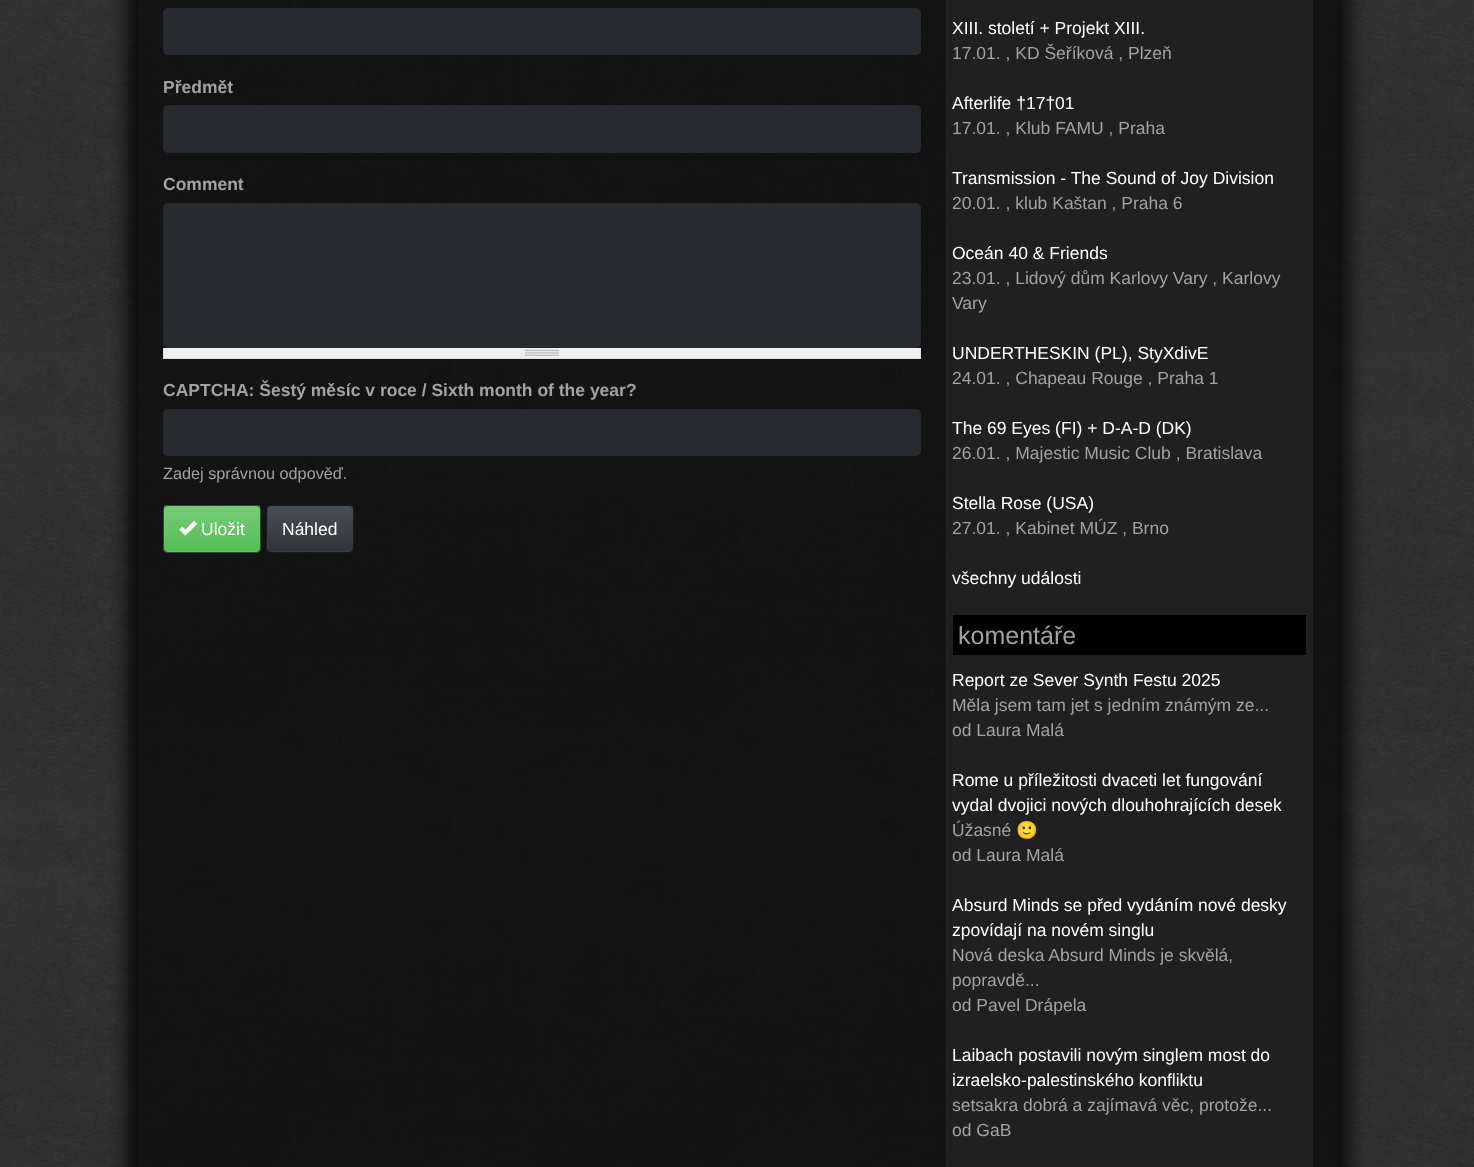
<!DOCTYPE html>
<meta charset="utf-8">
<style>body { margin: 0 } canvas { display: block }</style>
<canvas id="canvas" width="1474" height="1167"></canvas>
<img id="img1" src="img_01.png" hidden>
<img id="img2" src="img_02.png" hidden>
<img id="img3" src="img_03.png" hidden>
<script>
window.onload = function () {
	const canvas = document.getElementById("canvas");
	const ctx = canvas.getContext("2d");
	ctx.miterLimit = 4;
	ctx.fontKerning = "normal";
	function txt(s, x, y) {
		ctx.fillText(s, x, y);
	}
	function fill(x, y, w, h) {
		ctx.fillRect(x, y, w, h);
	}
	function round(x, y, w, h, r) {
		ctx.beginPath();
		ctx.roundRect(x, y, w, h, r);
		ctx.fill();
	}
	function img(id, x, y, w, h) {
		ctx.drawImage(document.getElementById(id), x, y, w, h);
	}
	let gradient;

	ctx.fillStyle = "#FFFFFF";
	fill(0, 0, 1474, 1167);
	img("img1", 0, 0, 1474, 1167);
	ctx.save();
	ctx.beginPath();
	ctx.rect(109, 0, 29, 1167);
	ctx.clip();
	ctx.fillStyle = "rgba(0, 0, 0, 0.8)";
	ctx.filter = "blur(9.5px)";
	ctx.beginPath();
	ctx.rect(128, -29, 1190, 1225);
	ctx.fill();
	ctx.filter = "none";
	ctx.restore();
	ctx.save();
	ctx.beginPath();
	ctx.moveTo(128, 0);
	ctx.lineTo(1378, 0);
	ctx.lineTo(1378, 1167);
	ctx.lineTo(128, 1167);
	ctx.closePath();
	ctx.moveTo(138, -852);
	ctx.lineTo(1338, -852);
	ctx.lineTo(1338, 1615);
	ctx.lineTo(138, 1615);
	ctx.closePath();
	ctx.clip("evenodd");
	ctx.fillStyle = "rgba(0, 0, 0, 0.8)";
	ctx.filter = "blur(9.5px)";
	ctx.beginPath();
	ctx.rect(158, -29, 1190, 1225);
	ctx.fill();
	ctx.filter = "none";
	ctx.restore();
	ctx.fillStyle = "rgba(0, 0, 0, 0.6)";
	fill(138, 0, 1200, 1167);
	ctx.fillStyle = "#272B30";
	round(163, 8, 758, 47, 5);
	ctx.fillStyle = "rgba(0, 0, 0, 0.07)";
	ctx.beginPath();
	ctx.moveTo(168, 9);
	ctx.lineTo(916, 9);
	ctx.bezierCurveTo(919, 9, 921, 11, 921, 14);
	ctx.lineTo(921, 13);
	ctx.bezierCurveTo(921, 10, 919, 8, 916, 8);
	ctx.lineTo(168, 8);
	ctx.bezierCurveTo(166, 8, 164, 9, 164, 11);
	ctx.bezierCurveTo(165, 10, 166, 9, 168, 9);
	ctx.closePath();
	ctx.fill();
	ctx.fillStyle = "#272B30";
	round(163, 105, 758, 48, 5);
	ctx.fillStyle = "rgba(0, 0, 0, 0.07)";
	ctx.beginPath();
	ctx.moveTo(168, 106);
	ctx.lineTo(916, 106);
	ctx.bezierCurveTo(919, 106, 921, 108, 921, 111);
	ctx.lineTo(921, 110);
	ctx.bezierCurveTo(921, 107, 919, 105, 916, 105);
	ctx.lineTo(168, 105);
	ctx.bezierCurveTo(166, 105, 164, 106, 164, 108);
	ctx.bezierCurveTo(165, 107, 166, 106, 168, 106);
	ctx.closePath();
	ctx.fill();
	ctx.fillStyle = "#272B30";
	round(163, 203, 758, 145, 5);
	ctx.fillStyle = "rgba(0, 0, 0, 0.07)";
	ctx.beginPath();
	ctx.moveTo(168, 204);
	ctx.lineTo(916, 204);
	ctx.bezierCurveTo(919, 204, 921, 206, 921, 209);
	ctx.lineTo(921, 208);
	ctx.bezierCurveTo(921, 205, 919, 203, 916, 203);
	ctx.lineTo(168, 203);
	ctx.bezierCurveTo(166, 203, 164, 204, 164, 206);
	ctx.bezierCurveTo(165, 205, 166, 204, 168, 204);
	ctx.closePath();
	ctx.fill();
	ctx.fillStyle = "#EEEEEE";
	fill(164, 348, 756, 10);
	img("img2", 525, 349, 34, 7);
	ctx.fillStyle = "#DDDDDD";
	fill(920, 348, 1, 11);
	fill(163, 358, 758, 1);
	fill(163, 348, 1, 11);
	ctx.fillStyle = "#272B30";
	round(163, 409, 758, 47, 5);
	ctx.fillStyle = "rgba(0, 0, 0, 0.07)";
	ctx.beginPath();
	ctx.moveTo(168, 410);
	ctx.lineTo(916, 410);
	ctx.bezierCurveTo(919, 410, 921, 412, 921, 415);
	ctx.lineTo(921, 414);
	ctx.bezierCurveTo(921, 411, 919, 409, 916, 409);
	ctx.lineTo(168, 409);
	ctx.bezierCurveTo(166, 409, 164, 410, 164, 412);
	ctx.bezierCurveTo(165, 411, 166, 410, 168, 410);
	ctx.closePath();
	ctx.fill();
	ctx.fillStyle = "#62C462";
	round(163, 505, 98, 48, 5);
	gradient = ctx.createLinearGradient(212, 506, 212, 551);
	gradient.addColorStop(0, "#78CC78");
	gradient.addColorStop(0.6, "#62C462");
	gradient.addColorStop(1, "#53BE53");
	ctx.fillStyle = gradient;
	fill(164, 506, 96, 45);
	ctx.beginPath();
	ctx.roundRect(163.5, 505.5, 97, 47, 4.5);
	ctx.strokeStyle = "rgba(0, 0, 0, 0.6)";
	ctx.stroke();
	img("img3", 179, 520, 18, 16);
	ctx.fillStyle = "#3A3F44";
	round(266, 505, 88, 48, 5);
	gradient = ctx.createLinearGradient(310, 506, 310, 551);
	gradient.addColorStop(0, "#484E55");
	gradient.addColorStop(0.6, "#3A3F44");
	gradient.addColorStop(1, "#313539");
	ctx.fillStyle = gradient;
	fill(268, 506, 85, 45);
	ctx.beginPath();
	ctx.roundRect(266.5, 505.5, 87, 47, 4.5);
	ctx.stroke();
	ctx.fillStyle = "#202020";
	fill(946, 0, 367, 1167);
	ctx.fillStyle = "#000000";
	fill(953, 615, 353, 40);
	ctx.font = "bold 17.5px Liberation Sans";
	ctx.fillStyle = "#A2A2A2";
	txt("Předmět", 163, 93);
	txt("Comment", 163, 190);
	txt("CAPTCHA: Šestý měsíc v roce / Sixth month of the year?", 163, 396);
	ctx.font = "16.25px Liberation Sans";
	txt("Zadej správnou odpověď.", 163, 479);
	ctx.font = "17.5px Liberation Sans";
	ctx.fillStyle = "#FFFFFF";
	txt("Uložit", 201, 535);
	txt("Náhled", 282, 535);
	txt("XIII. století + Projekt XIII.", 952, 34);
	ctx.fillStyle = "#A2A2A2";
	txt("17.01. , KD Šeříková , Plzeň", 952, 59);
	ctx.fillStyle = "#FFFFFF";
	txt("Afterlife †17†01", 952, 109);
	ctx.fillStyle = "#A2A2A2";
	txt("17.01. , Klub FAMU , Praha", 952, 134);
	ctx.fillStyle = "#FFFFFF";
	txt("Transmission - The Sound of Joy Division", 952, 184);
	ctx.fillStyle = "#A2A2A2";
	txt("20.01. , klub Kaštan , Praha 6", 952, 209);
	ctx.fillStyle = "#FFFFFF";
	txt("Oceán 40 & Friends", 952, 259);
	ctx.fillStyle = "#A2A2A2";
	txt("23.01. , Lidový dům Karlovy Vary , Karlovy", 952, 284);
	txt("Vary", 952, 309);
	ctx.fillStyle = "#FFFFFF";
	txt("UNDERTHESKIN (PL), StyXdivE", 952, 359);
	ctx.fillStyle = "#A2A2A2";
	txt("24.01. , Chapeau Rouge , Praha 1", 952, 384);
	ctx.fillStyle = "#FFFFFF";
	txt("The 69 Eyes (FI) + D-A-D (DK)", 952, 434);
	ctx.fillStyle = "#A2A2A2";
	txt("26.01. , Majestic Music Club , Bratislava", 952, 459);
	ctx.fillStyle = "#FFFFFF";
	txt("Stella Rose (USA)", 952, 509);
	ctx.fillStyle = "#A2A2A2";
	txt("27.01. , Kabinet MÚZ , Brno", 952, 534);
	ctx.fillStyle = "#FFFFFF";
	txt("všechny události", 952, 584);
	ctx.font = "25px Liberation Sans";
	ctx.fillStyle = "#A2A2A2";
	txt("komentáře", 958, 644);
	ctx.font = "17.5px Liberation Sans";
	ctx.fillStyle = "#FFFFFF";
	txt("Report ze Sever Synth Festu 2025", 952, 686);
	ctx.fillStyle = "#A2A2A2";
	txt("Měla jsem tam jet s jedním známým ze...", 952, 711);
	txt("od Laura Malá", 952, 736);
	ctx.fillStyle = "#FFFFFF";
	txt("Rome u příležitosti dvaceti let fungování", 952, 786);
	txt("vydal dvojici nových dlouhohrajících desek", 952, 811);
	ctx.fillStyle = "#A2A2A2";
	txt("Úžasné", 952, 836);
	ctx.font = "17.5px Noto Color Emoji";
	txt("🙂", 1016, 836);
	ctx.font = "17.5px Liberation Sans";
	txt("od Laura Malá", 952, 861);
	ctx.fillStyle = "#FFFFFF";
	txt("Absurd Minds se před vydáním nové desky", 952, 911);
	txt("zpovídají na novém singlu", 952, 936);
	ctx.fillStyle = "#A2A2A2";
	txt("Nová deska Absurd Minds je skvělá,", 952, 961);
	txt("popravdě...", 952, 986);
	txt("od Pavel Drápela", 952, 1011);
	ctx.fillStyle = "#FFFFFF";
	txt("Laibach postavili novým singlem most do", 952, 1061);
	txt("izraelsko-palestinského konfliktu", 952, 1086);
	ctx.fillStyle = "#A2A2A2";
	txt("setsakra dobrá a zajímavá věc, protože...", 952, 1111);
	txt("od GaB", 952, 1136);
};
</script>
